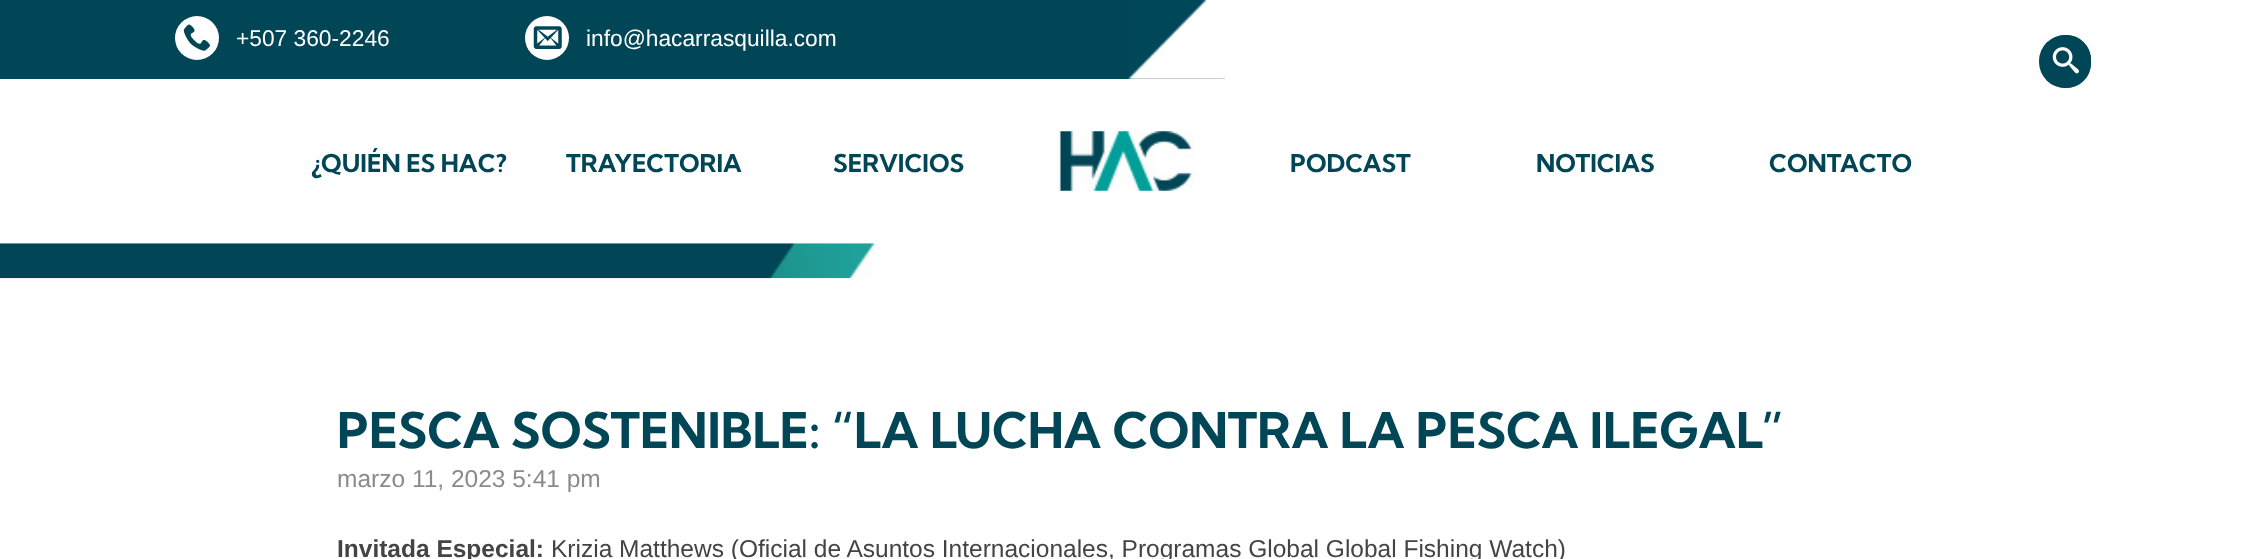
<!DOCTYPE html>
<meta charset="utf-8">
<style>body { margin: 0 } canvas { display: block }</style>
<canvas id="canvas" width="2248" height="559"></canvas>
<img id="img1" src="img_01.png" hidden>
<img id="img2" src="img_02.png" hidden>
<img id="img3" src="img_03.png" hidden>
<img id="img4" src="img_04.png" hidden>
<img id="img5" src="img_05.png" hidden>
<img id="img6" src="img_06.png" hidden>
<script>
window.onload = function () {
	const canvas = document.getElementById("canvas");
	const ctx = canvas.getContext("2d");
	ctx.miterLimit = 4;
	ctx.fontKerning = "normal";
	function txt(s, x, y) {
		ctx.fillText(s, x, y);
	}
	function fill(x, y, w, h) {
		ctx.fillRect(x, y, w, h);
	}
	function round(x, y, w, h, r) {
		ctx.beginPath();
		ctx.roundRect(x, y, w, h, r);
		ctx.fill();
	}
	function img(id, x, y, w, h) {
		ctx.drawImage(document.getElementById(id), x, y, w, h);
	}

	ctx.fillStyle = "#FFFFFF";
	fill(0, 0, 2248, 559);
	ctx.fillStyle = "#004656";
	fill(0, 0, 1225, 79);
	img("img1", 1128, 0, 97, 79);
	ctx.fillStyle = "#FFFFFF";
	ctx.beginPath();
	ctx.arc(197, 38, 22, 0, Math.PI * 2);
	ctx.fill();
	img("img2", 183, 24, 27, 27);
	ctx.beginPath();
	ctx.arc(547, 38, 22, 0, Math.PI * 2);
	ctx.fill();
	img("img3", 533, 26, 29, 23);
	ctx.beginPath();
	ctx.roundRect(2043, 36, 47, 51, 23.5);
	ctx.strokeStyle = "#004656";
	ctx.lineWidth = 2;
	ctx.stroke();
	ctx.fillStyle = "#004656";
	round(2039, 35, 52, 53, 26);
	img("img4", 2052, 47, 27, 27);
	img("img5", 1058, 131, 136, 60);
	img("img6", 0, 243, 875, 36);
	ctx.font = "22.75px Liberation Sans";
	ctx.fillStyle = "#FFFFFF";
	txt("+507 360-2246", 236, 46);
	txt("info@hacarrasquilla.com", 586, 46);
	ctx.font = "bold 24.5px Kumbh Sans";
	ctx.fillStyle = "#004656";
	txt("¿QUIÉN ES HAC?", 311, 172);
	txt("TRAYECTORIA", 566, 172);
	txt("SERVICIOS", 833, 172);
	txt("PODCAST", 1290, 172);
	txt("NOTICIAS", 1536, 172);
	txt("CONTACTO", 1769, 172);
	ctx.font = "bold 49px Kumbh Sans";
	txt("PESCA SOSTENIBLE: “LA LUCHA CONTRA LA PESCA ILEGAL”", 337, 448);
	ctx.font = "24.5px Liberation Sans";
	ctx.fillStyle = "#8B8B8B";
	txt("marzo 11, 2023 5:41 pm", 337, 487);
	ctx.font = "bold 24.5px Liberation Sans";
	ctx.fillStyle = "#444444";
	txt("Invitada Especial:", 337, 557);
	ctx.font = "24.5px Liberation Sans";
	txt("Krizia Matthews (Oficial de Asuntos Internacionales, Programas Global Global Fishing Watch)", 551, 557);
};
</script>
